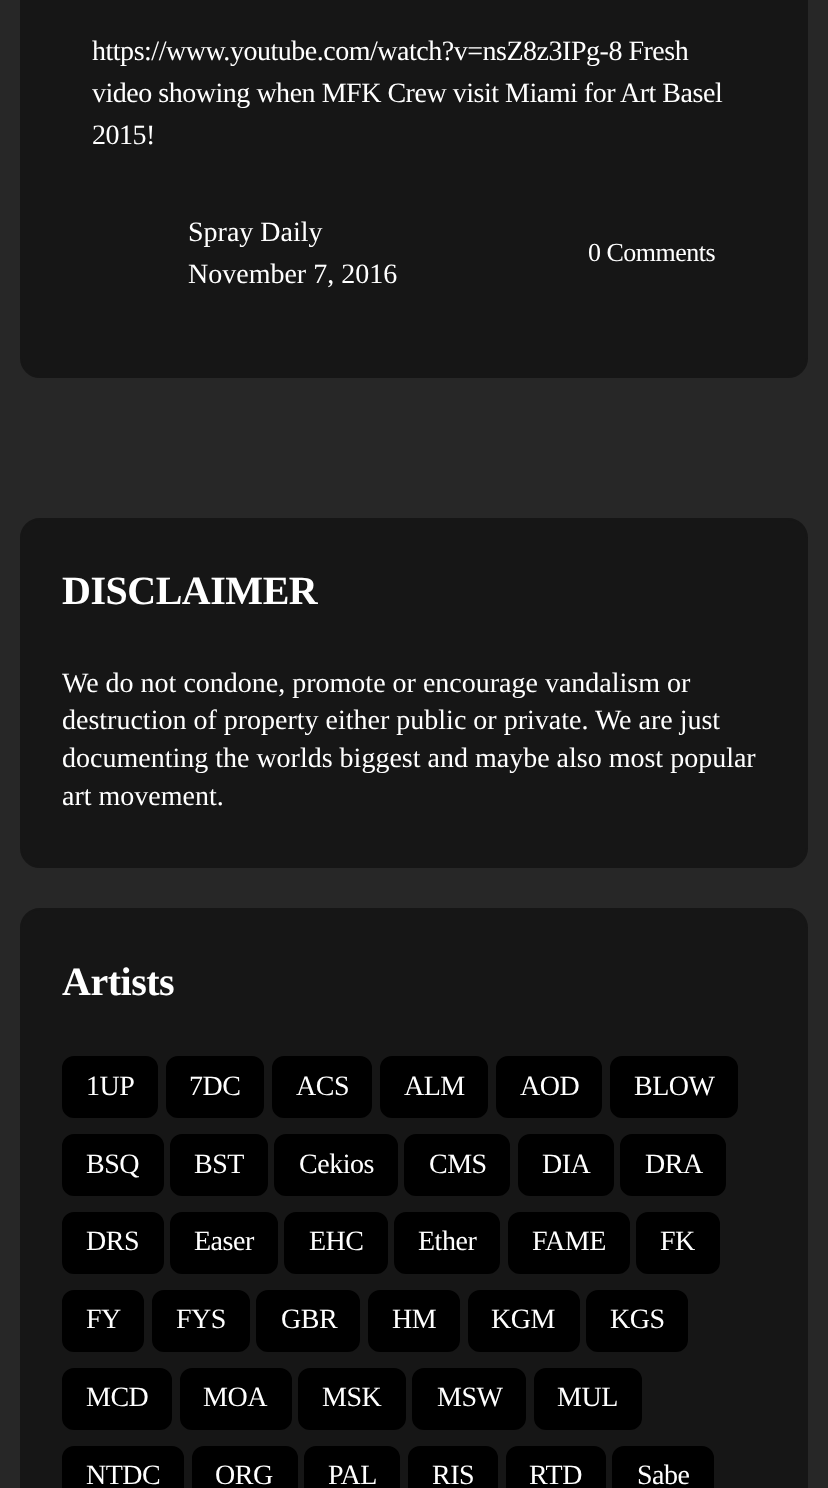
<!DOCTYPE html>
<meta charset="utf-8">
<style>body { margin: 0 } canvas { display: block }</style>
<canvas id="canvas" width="828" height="1488"></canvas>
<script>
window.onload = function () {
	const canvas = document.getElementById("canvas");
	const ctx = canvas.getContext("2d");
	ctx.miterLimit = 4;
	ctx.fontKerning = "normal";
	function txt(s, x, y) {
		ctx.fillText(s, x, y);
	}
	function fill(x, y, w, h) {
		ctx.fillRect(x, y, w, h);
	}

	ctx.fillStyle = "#272727";
	fill(0, 0, 828, 1488);
	ctx.fillStyle = "#161616";
	ctx.beginPath();
	ctx.roundRect(21, -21, 786, 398, 19);
	ctx.fill();
	ctx.strokeStyle = "#161616";
	ctx.lineWidth = 2;
	ctx.stroke();
	ctx.beginPath();
	ctx.roundRect(21, 519, 786, 348, 19);
	ctx.fill();
	ctx.stroke();
	ctx.beginPath();
	ctx.roundRect(21, 909, 786, 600, 19);
	ctx.fill();
	ctx.stroke();
	ctx.fillStyle = "#000000";
	ctx.beginPath();
	ctx.roundRect(63, 1057, 94, 60, 11);
	ctx.fill();
	ctx.strokeStyle = "#000000";
	ctx.stroke();
	ctx.beginPath();
	ctx.roundRect(167, 1057, 96, 60, 11);
	ctx.fill();
	ctx.stroke();
	ctx.beginPath();
	ctx.roundRect(273, 1057, 98, 60, 11);
	ctx.fill();
	ctx.stroke();
	ctx.beginPath();
	ctx.roundRect(381, 1057, 106, 60, 11);
	ctx.fill();
	ctx.stroke();
	ctx.beginPath();
	ctx.roundRect(497, 1057, 104, 60, 11);
	ctx.fill();
	ctx.stroke();
	ctx.beginPath();
	ctx.roundRect(611, 1057, 126, 60, 11);
	ctx.fill();
	ctx.stroke();
	ctx.beginPath();
	ctx.roundRect(63, 1135, 100, 60, 11);
	ctx.fill();
	ctx.stroke();
	ctx.beginPath();
	ctx.roundRect(171, 1135, 96, 60, 11);
	ctx.fill();
	ctx.stroke();
	ctx.beginPath();
	ctx.roundRect(275, 1135, 122, 60, 11);
	ctx.fill();
	ctx.stroke();
	ctx.beginPath();
	ctx.roundRect(405, 1135, 104, 60, 11);
	ctx.fill();
	ctx.stroke();
	ctx.beginPath();
	ctx.roundRect(519, 1135, 94, 60, 11);
	ctx.fill();
	ctx.stroke();
	ctx.beginPath();
	ctx.roundRect(621, 1135, 104, 60, 11);
	ctx.fill();
	ctx.stroke();
	ctx.beginPath();
	ctx.roundRect(63, 1213, 100, 60, 11);
	ctx.fill();
	ctx.stroke();
	ctx.beginPath();
	ctx.roundRect(171, 1213, 106, 60, 11);
	ctx.fill();
	ctx.stroke();
	ctx.beginPath();
	ctx.roundRect(285, 1213, 102, 60, 11);
	ctx.fill();
	ctx.stroke();
	ctx.beginPath();
	ctx.roundRect(395, 1213, 104, 60, 11);
	ctx.fill();
	ctx.stroke();
	ctx.beginPath();
	ctx.roundRect(509, 1213, 120, 60, 11);
	ctx.fill();
	ctx.stroke();
	ctx.beginPath();
	ctx.roundRect(637, 1213, 82, 60, 11);
	ctx.fill();
	ctx.stroke();
	ctx.beginPath();
	ctx.roundRect(63, 1291, 80, 60, 11);
	ctx.fill();
	ctx.stroke();
	ctx.beginPath();
	ctx.roundRect(153, 1291, 96, 60, 11);
	ctx.fill();
	ctx.stroke();
	ctx.beginPath();
	ctx.roundRect(257, 1291, 102, 60, 11);
	ctx.fill();
	ctx.stroke();
	ctx.beginPath();
	ctx.roundRect(369, 1291, 90, 60, 11);
	ctx.fill();
	ctx.stroke();
	ctx.beginPath();
	ctx.roundRect(469, 1291, 110, 60, 11);
	ctx.fill();
	ctx.stroke();
	ctx.beginPath();
	ctx.roundRect(587, 1291, 100, 60, 11);
	ctx.fill();
	ctx.stroke();
	ctx.beginPath();
	ctx.roundRect(63, 1369, 108, 60, 11);
	ctx.fill();
	ctx.stroke();
	ctx.beginPath();
	ctx.roundRect(181, 1369, 110, 60, 11);
	ctx.fill();
	ctx.stroke();
	ctx.beginPath();
	ctx.roundRect(299, 1369, 106, 60, 11);
	ctx.fill();
	ctx.stroke();
	ctx.beginPath();
	ctx.roundRect(413, 1369, 112, 60, 11);
	ctx.fill();
	ctx.stroke();
	ctx.beginPath();
	ctx.roundRect(535, 1369, 106, 60, 11);
	ctx.fill();
	ctx.stroke();
	ctx.beginPath();
	ctx.roundRect(63, 1447, 120, 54, 11);
	ctx.fill();
	ctx.stroke();
	ctx.beginPath();
	ctx.roundRect(193, 1447, 104, 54, 11);
	ctx.fill();
	ctx.stroke();
	ctx.beginPath();
	ctx.roundRect(305, 1447, 94, 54, 11);
	ctx.fill();
	ctx.stroke();
	ctx.beginPath();
	ctx.roundRect(409, 1447, 88, 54, 11);
	ctx.fill();
	ctx.stroke();
	ctx.beginPath();
	ctx.roundRect(507, 1447, 98, 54, 11);
	ctx.fill();
	ctx.stroke();
	ctx.beginPath();
	ctx.roundRect(613, 1447, 100, 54, 11);
	ctx.fill();
	ctx.stroke();
	ctx.letterSpacing = "-0.48px";
	ctx.font = "28px Liberation Serif";
	ctx.fillStyle = "#FFFFFF";
	txt("https://www.youtube.com/watch?v=nsZ8z3IPg-8 Fresh", 92, 60);
	txt("video showing when MFK Crew visit Miami for Art Basel", 92, 102);
	txt("2015!", 92, 144);
	ctx.letterSpacing = "0px";
	txt("Spray Daily", 188, 241);
	txt("November 7, 2016", 188, 283);
	ctx.letterSpacing = "-0.5px";
	ctx.font = "26px Liberation Serif";
	txt("0 Comments", 588, 261);
	ctx.letterSpacing = "-0.48px";
	ctx.font = "bold 40px Liberation Serif";
	txt("DISCLAIMER", 62, 604);
	ctx.letterSpacing = "0px";
	ctx.font = "28px Liberation Serif";
	txt("We do not condone, promote or encourage vandalism or", 62, 692);
	txt("destruction of property either public or private. We are just", 62, 729);
	txt("documenting the worlds biggest and maybe also most popular", 62, 767);
	txt("art movement.", 62, 805);
	ctx.letterSpacing = "-0.48px";
	ctx.font = "bold 40px Liberation Serif";
	txt("Artists", 62, 995);
	ctx.font = "28px Liberation Serif";
	txt("1UP", 86, 1095);
	txt("7DC", 189, 1095);
	txt("ACS", 296, 1095);
	txt("ALM", 404, 1095);
	txt("AOD", 520, 1095);
	txt("BLOW", 634, 1095);
	txt("BSQ", 86, 1173);
	txt("BST", 194, 1173);
	txt("Cekios", 299, 1173);
	txt("CMS", 429, 1173);
	txt("DIA", 542, 1173);
	txt("DRA", 645, 1173);
	txt("DRS", 86, 1250);
	txt("Easer", 194, 1250);
	txt("EHC", 309, 1250);
	txt("Ether", 418, 1250);
	txt("FAME", 532, 1250);
	txt("FK", 660, 1250);
	txt("FY", 86, 1328);
	txt("FYS", 176, 1328);
	txt("GBR", 281, 1328);
	txt("HM", 392, 1328);
	txt("KGM", 491, 1328);
	txt("KGS", 610, 1328);
	txt("MCD", 86, 1406);
	txt("MOA", 203, 1406);
	txt("MSK", 322, 1406);
	txt("MSW", 437, 1406);
	txt("MUL", 557, 1406);
	txt("NTDC", 86, 1484);
	txt("ORG", 215, 1484);
	txt("PAL", 328, 1484);
	txt("RIS", 432, 1484);
	txt("RTD", 529, 1484);
	txt("Sabe", 637, 1484);
};
</script>
